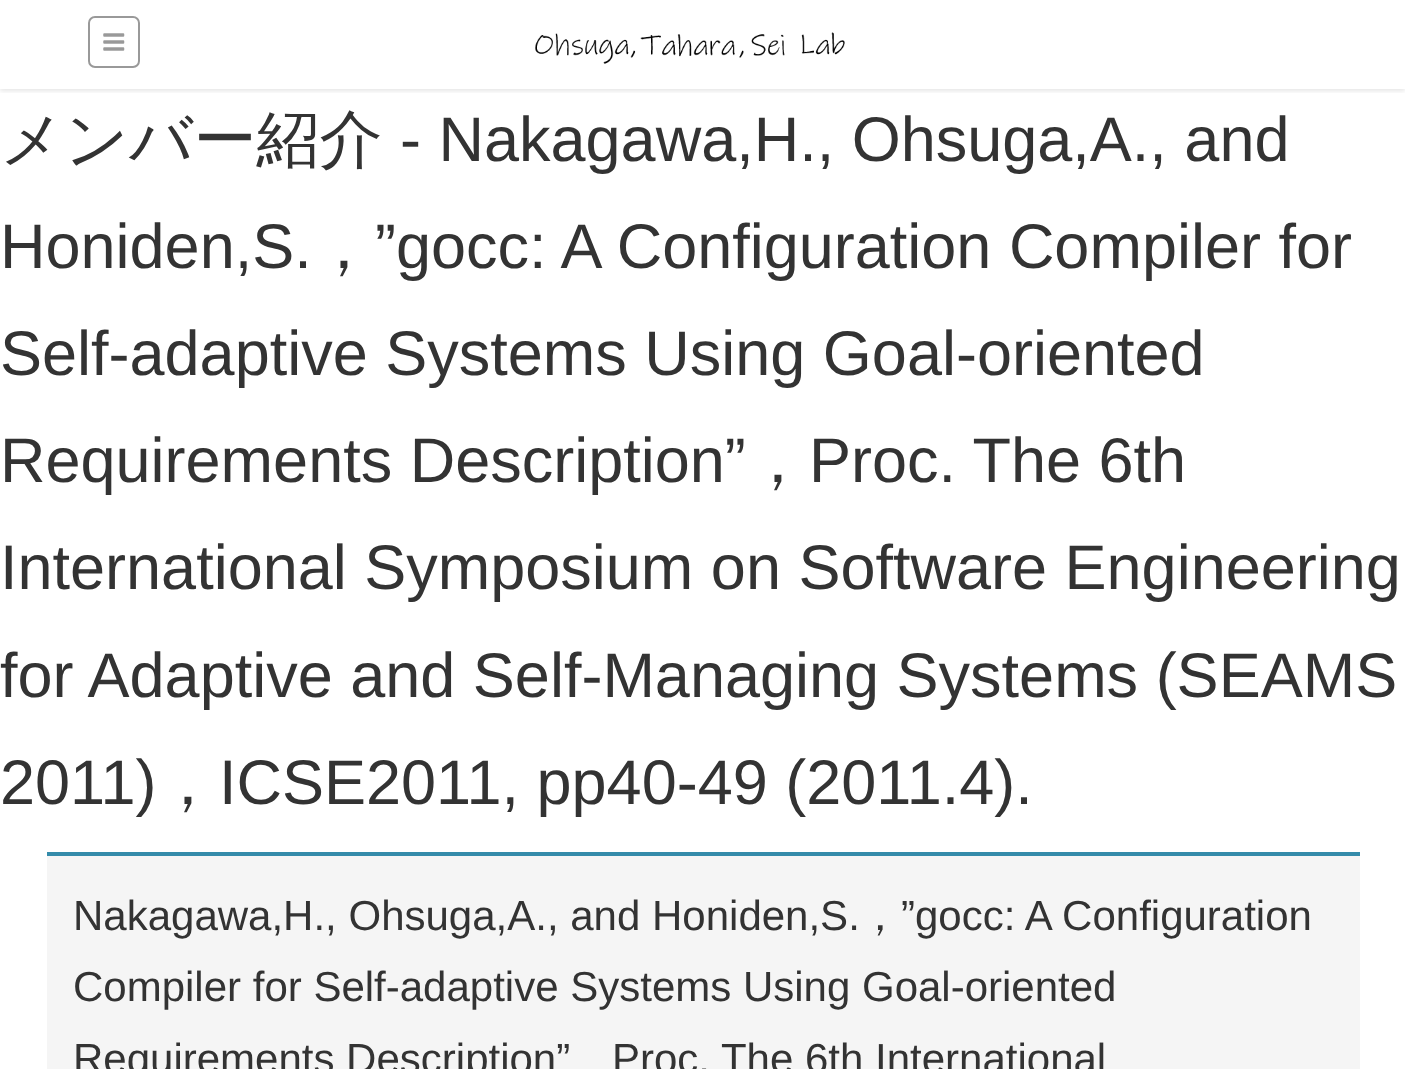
<!DOCTYPE html>
<meta charset="utf-8">
<style>body { margin: 0 } canvas { display: block }</style>
<canvas id="canvas" width="1405" height="1069"></canvas>
<img id="img1" src="img_01.png" hidden>
<img id="img2" src="img_02.png" hidden>
<script>
window.onload = function () {
	const canvas = document.getElementById("canvas");
	const ctx = canvas.getContext("2d");
	ctx.miterLimit = 4;
	ctx.fontKerning = "normal";
	function txt(s, x, y) {
		ctx.fillText(s, x, y);
	}
	function fill(x, y, w, h) {
		ctx.fillRect(x, y, w, h);
	}
	function img(id, x, y, w, h) {
		ctx.drawImage(document.getElementById(id), x, y, w, h);
	}

	ctx.fillStyle = "#FFFFFF";
	fill(0, 0, 1405, 1069);
	ctx.save();
	ctx.beginPath();
	ctx.rect(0, 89, 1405, 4);
	ctx.clip();
	ctx.fillStyle = "rgba(0, 0, 0, 0.1)";
	ctx.filter = "blur(2.5px)";
	ctx.beginPath();
	ctx.rect(0, 2, 1405, 89);
	ctx.fill();
	ctx.filter = "none";
	ctx.restore();
	ctx.beginPath();
	ctx.roundRect(89, 17, 50, 50, 6);
	ctx.strokeStyle = "#999999";
	ctx.lineWidth = 2;
	ctx.stroke();
	img("img1", 103, 33, 22, 18);
	img("img2", 535, 32, 310, 32);
	ctx.fillStyle = "#F5F5F5";
	fill(47, 856, 1313, 213);
	ctx.fillStyle = "#348BAA";
	fill(47, 852, 1313, 4);
	ctx.font = "500 63px WenQuanYi Zen Hei";
	ctx.fillStyle = "#333333";
	txt("メンバー紹介", 0, 161);
	ctx.font = "63px Liberation Sans";
	txt("- Nakagawa,H., Ohsuga,A., and", 400, 161);
	txt("Honiden,S.", 0, 268);
	ctx.font = "500 63px WenQuanYi Zen Hei";
	txt("，", 312, 268);
	ctx.font = "63px Liberation Sans";
	txt("”gocc: A Configuration Compiler for", 375, 268);
	txt("Self-adaptive Systems Using Goal-oriented", 0, 375);
	txt("Requirements Description”", 0, 482);
	ctx.font = "500 63px WenQuanYi Zen Hei";
	txt("，", 746, 482);
	ctx.font = "63px Liberation Sans";
	txt("Proc. The 6th", 809, 482);
	txt("International Symposium on Software Engineering", 0, 589);
	txt("for Adaptive and Self-Managing Systems (SEAMS", 0, 697);
	txt("2011)", 0, 804);
	ctx.font = "500 63px WenQuanYi Zen Hei";
	txt("，", 156, 804);
	ctx.font = "63px Liberation Sans";
	txt("ICSE2011, pp40-49 (2011.4).", 219, 804);
	ctx.font = "42px Liberation Sans";
	txt("Nakagawa,H., Ohsuga,A., and Honiden,S.", 73, 930);
	ctx.font = "500 42px WenQuanYi Zen Hei";
	txt("，", 859, 930);
	ctx.font = "42px Liberation Sans";
	txt("”gocc: A Configuration", 901, 930);
	txt("Compiler for Self-adaptive Systems Using Goal-oriented", 73, 1001);
	txt("Requirements Description”", 73, 1073);
	txt("Proc. The 6th International", 612, 1073);
};
</script>
